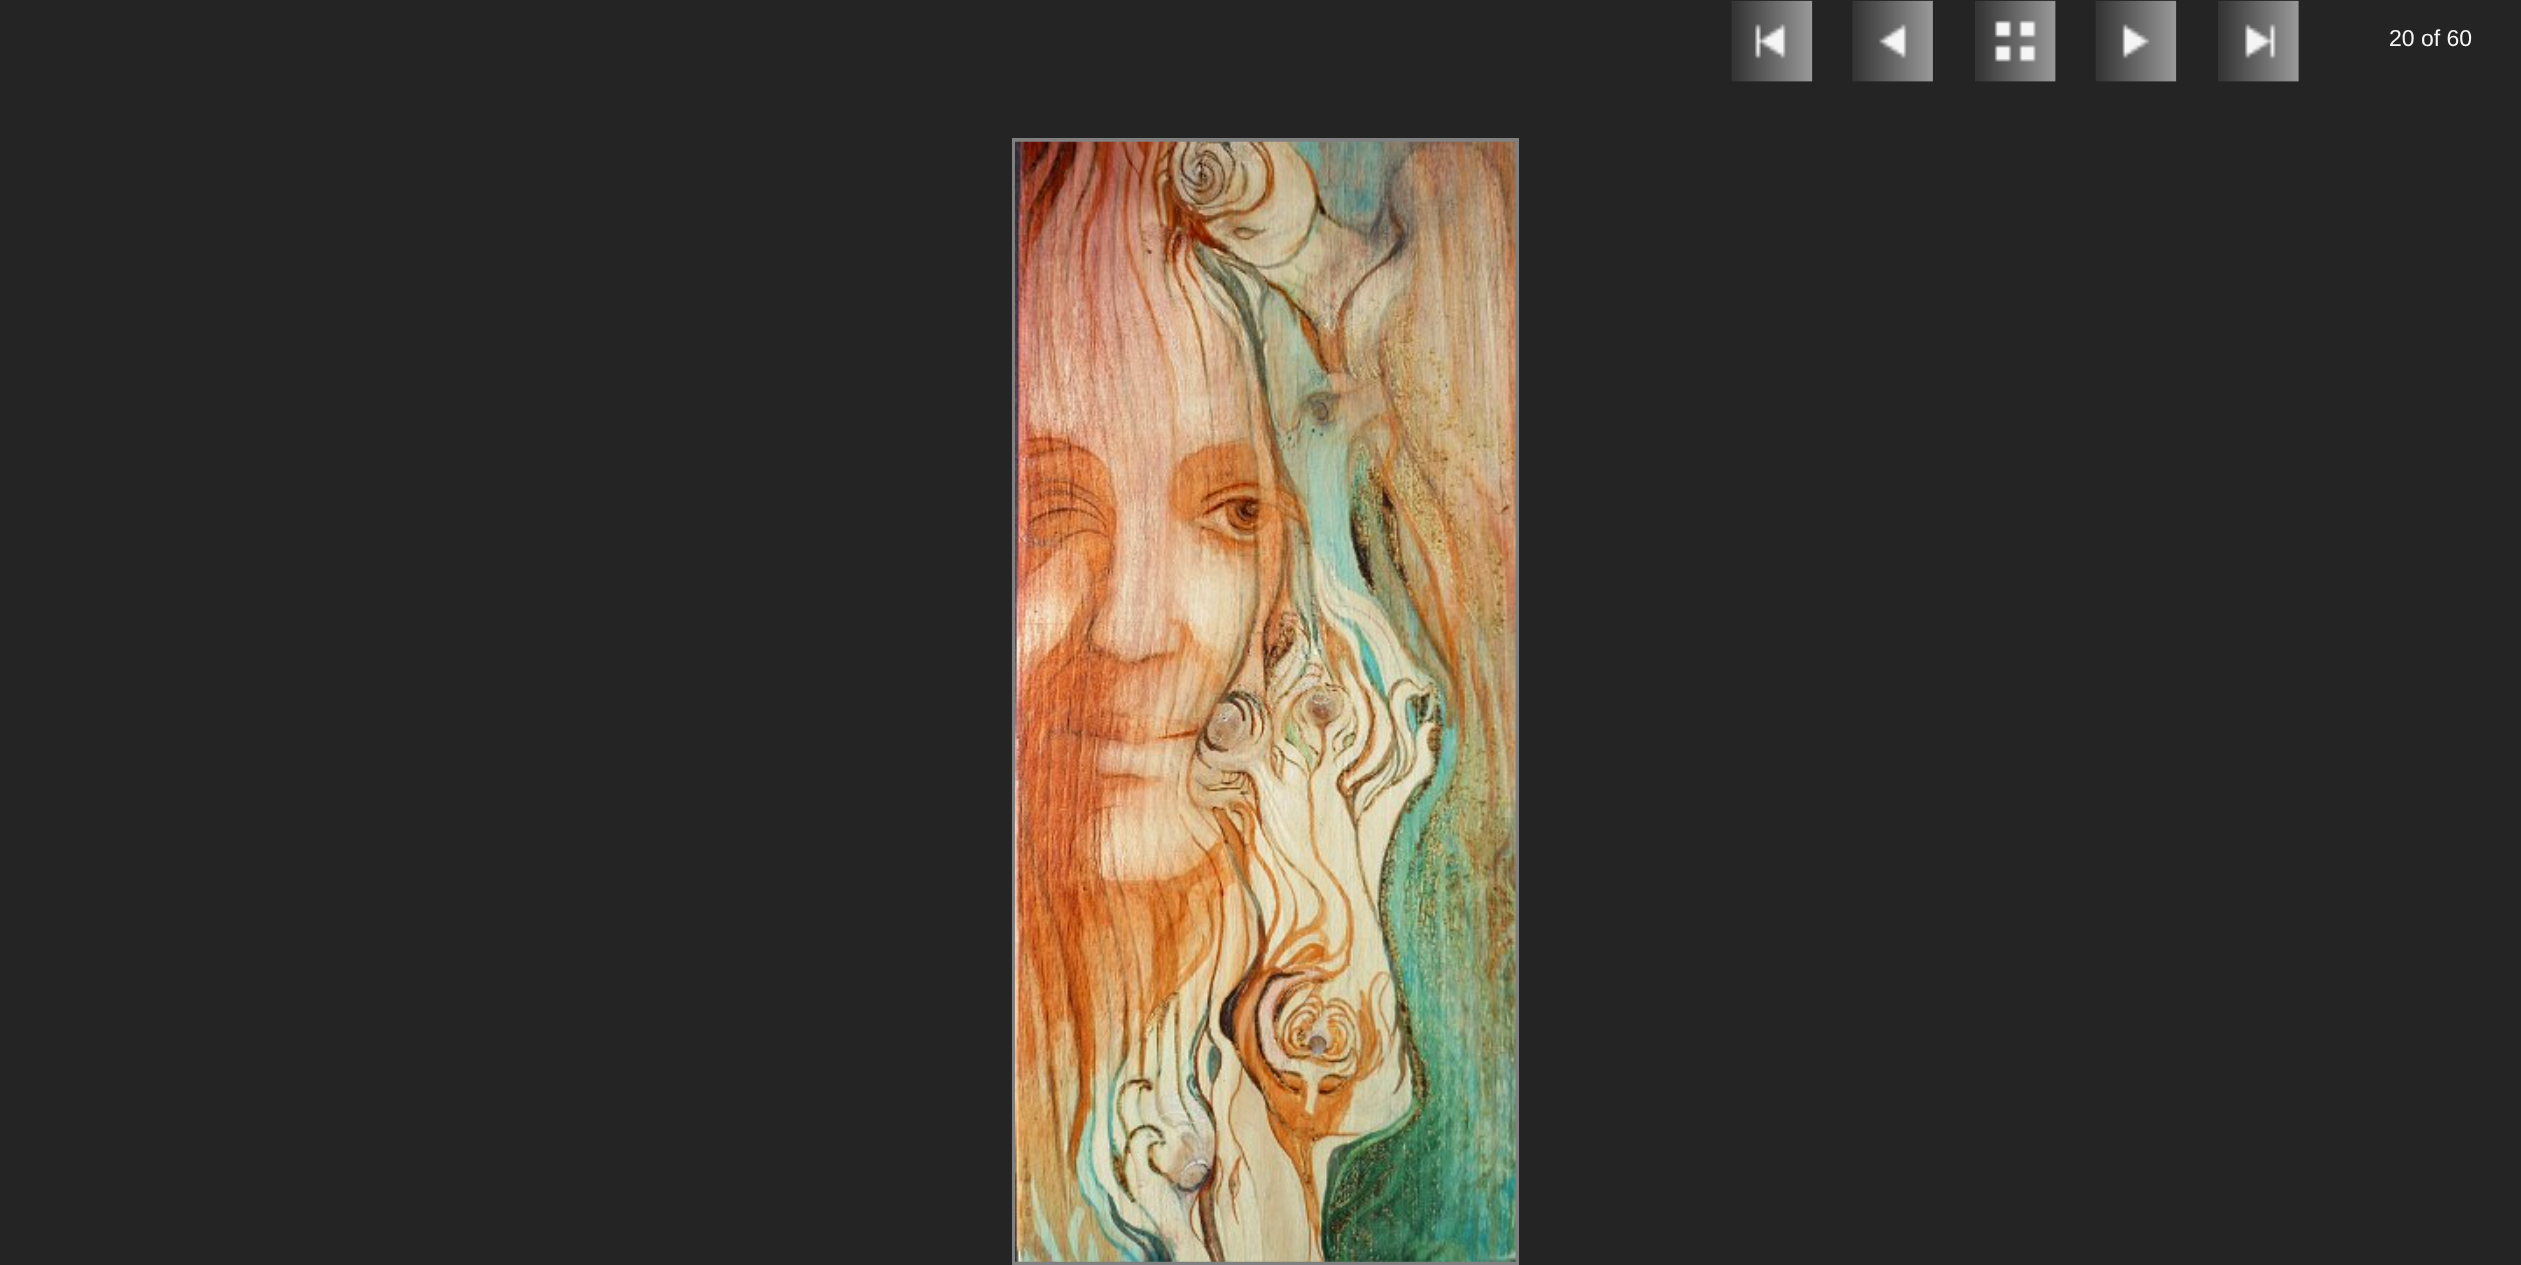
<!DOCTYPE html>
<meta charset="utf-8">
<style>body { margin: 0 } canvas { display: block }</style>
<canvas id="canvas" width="2521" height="1265"></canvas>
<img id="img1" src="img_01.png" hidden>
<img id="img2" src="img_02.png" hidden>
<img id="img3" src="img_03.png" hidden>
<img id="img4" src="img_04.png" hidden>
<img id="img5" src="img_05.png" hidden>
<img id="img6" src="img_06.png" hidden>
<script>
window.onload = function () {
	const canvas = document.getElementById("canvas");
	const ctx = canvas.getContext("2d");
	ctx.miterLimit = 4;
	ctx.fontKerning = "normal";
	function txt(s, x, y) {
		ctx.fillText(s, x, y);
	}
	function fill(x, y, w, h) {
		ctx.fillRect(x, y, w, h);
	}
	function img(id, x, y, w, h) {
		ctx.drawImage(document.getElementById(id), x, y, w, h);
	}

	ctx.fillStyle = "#242424";
	fill(0, 0, 2521, 1265);
	img("img1", 1731, 0, 82, 82);
	img("img2", 1852, 0, 81, 82);
	img("img3", 1975, 0, 81, 82);
	img("img4", 2095, 0, 82, 82);
	img("img5", 2218, 0, 81, 82);
	ctx.strokeStyle = "#808080";
	ctx.lineWidth = 4;
	ctx.strokeRect(1014, 140, 503, 1123);
	img("img6", 1015, 141, 501, 1121);
	ctx.font = "23px Liberation Sans";
	ctx.fillStyle = "#F5F5F5";
	txt("20 of 60", 2389, 46);
};
</script>
